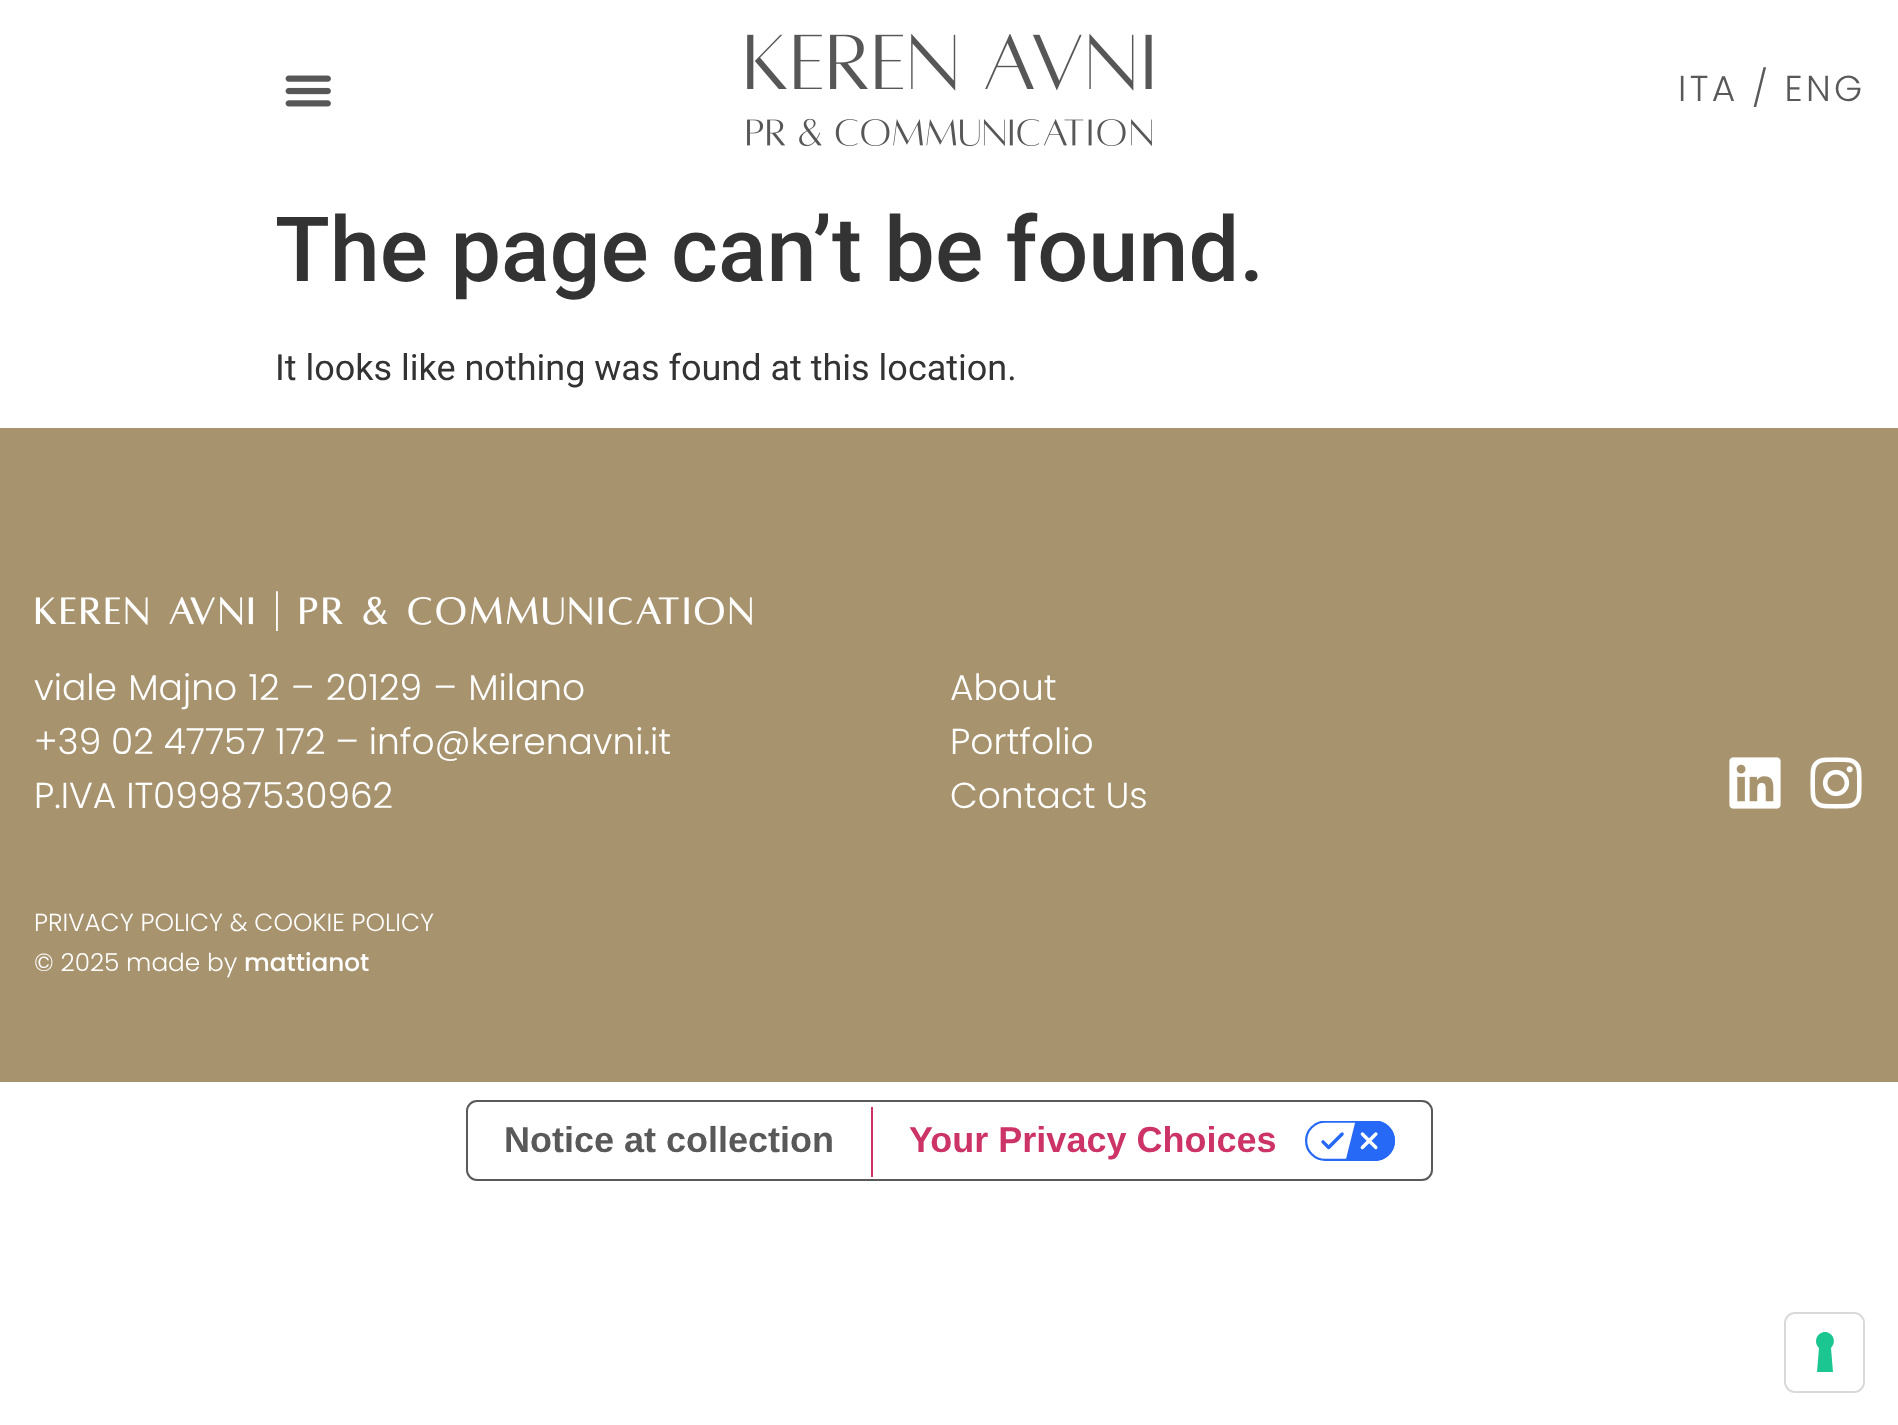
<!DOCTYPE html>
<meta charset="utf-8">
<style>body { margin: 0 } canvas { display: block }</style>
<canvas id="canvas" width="1898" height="1425"></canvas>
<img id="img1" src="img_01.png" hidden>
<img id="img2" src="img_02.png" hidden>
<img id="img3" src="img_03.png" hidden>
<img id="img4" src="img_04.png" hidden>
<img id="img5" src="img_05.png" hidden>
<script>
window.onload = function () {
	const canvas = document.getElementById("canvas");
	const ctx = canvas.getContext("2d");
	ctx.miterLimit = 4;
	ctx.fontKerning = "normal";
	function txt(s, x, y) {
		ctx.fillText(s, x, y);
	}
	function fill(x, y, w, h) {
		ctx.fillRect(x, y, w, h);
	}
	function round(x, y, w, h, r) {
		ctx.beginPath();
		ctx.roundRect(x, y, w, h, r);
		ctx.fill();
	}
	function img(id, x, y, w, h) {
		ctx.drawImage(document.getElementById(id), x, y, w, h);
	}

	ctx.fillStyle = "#FFFFFF";
	fill(0, 0, 1898, 1425);
	img("img1", 285, 75, 46, 32);
	img("img2", 747, 34, 405, 112);
	ctx.fillStyle = "#A8936F";
	fill(0, 428, 1898, 654);
	img("img3", 1729, 757, 52, 52);
	img("img4", 1810, 757, 52, 52);
	ctx.beginPath();
	ctx.roundRect(467, 1101, 965, 79, 10);
	ctx.strokeStyle = "#595959";
	ctx.lineWidth = 2;
	ctx.stroke();
	ctx.fillStyle = "#CC3366";
	fill(871, 1107, 2, 70);
	img("img5", 1305, 1121, 90, 40);
	ctx.beginPath();
	ctx.roundRect(1785, 1313, 79, 79, 10);
	ctx.strokeStyle = "#D9D9D9";
	ctx.stroke();
	ctx.fillStyle = "#FFFFFF";
	round(1787, 1314, 76, 77, 9);
	ctx.fillStyle = "#1CC691";
	ctx.beginPath();
	ctx.moveTo(1825, 1332);
	ctx.bezierCurveTo(1833, 1332, 1837, 1342, 1831, 1348);
	ctx.lineTo(1833, 1372);
	ctx.lineTo(1817, 1372);
	ctx.lineTo(1819, 1348);
	ctx.bezierCurveTo(1813, 1342, 1817, 1332, 1825, 1332);
	ctx.closePath();
	ctx.fill("evenodd");
	ctx.letterSpacing = "3.4px";
	ctx.font = "300 36px Poppins";
	ctx.fillStyle = "#595959";
	txt("ITA / ENG", 1678, 101);
	ctx.letterSpacing = "0px";
	ctx.font = "500 90px Roboto";
	ctx.fillStyle = "#333333";
	txt("The page can’t be found.", 275, 281);
	ctx.font = "36px Roboto";
	txt("It looks like nothing was found at this location.", 275, 380);
	ctx.letterSpacing = "3.4px";
	ctx.wordSpacing = "2.75px";
	ctx.font = "bold 40.5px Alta";
	ctx.fillStyle = "#FFFFFF";
	txt("KEREN AVNI | PR & COMMUNICATION", 34, 624);
	ctx.letterSpacing = "0px";
	ctx.wordSpacing = "1.5px";
	ctx.font = "300 36px Poppins";
	txt("viale Majno 12 – 20129 – Milano", 34, 700);
	ctx.wordSpacing = "0px";
	txt("+39 02 47757 172 – info@kerenavni.it", 34, 754);
	txt("P.IVA IT09987530962", 34, 808);
	txt("About", 950, 700);
	txt("Portfolio", 950, 754);
	txt("Contact Us", 950, 808);
	ctx.font = "300 24.75px Poppins";
	txt("PRIVACY POLICY & COOKIE POLICY", 34, 931);
	txt("© 2025 made by", 34, 971);
	ctx.font = "500 24.75px Poppins";
	txt("mattianot", 244, 971);
	ctx.font = "bold 36px Liberation Sans";
	ctx.fillStyle = "#595959";
	txt("Notice at collection", 504, 1152);
	ctx.fillStyle = "#CC3366";
	txt("Your Privacy Choices", 909, 1152);
};
</script>
